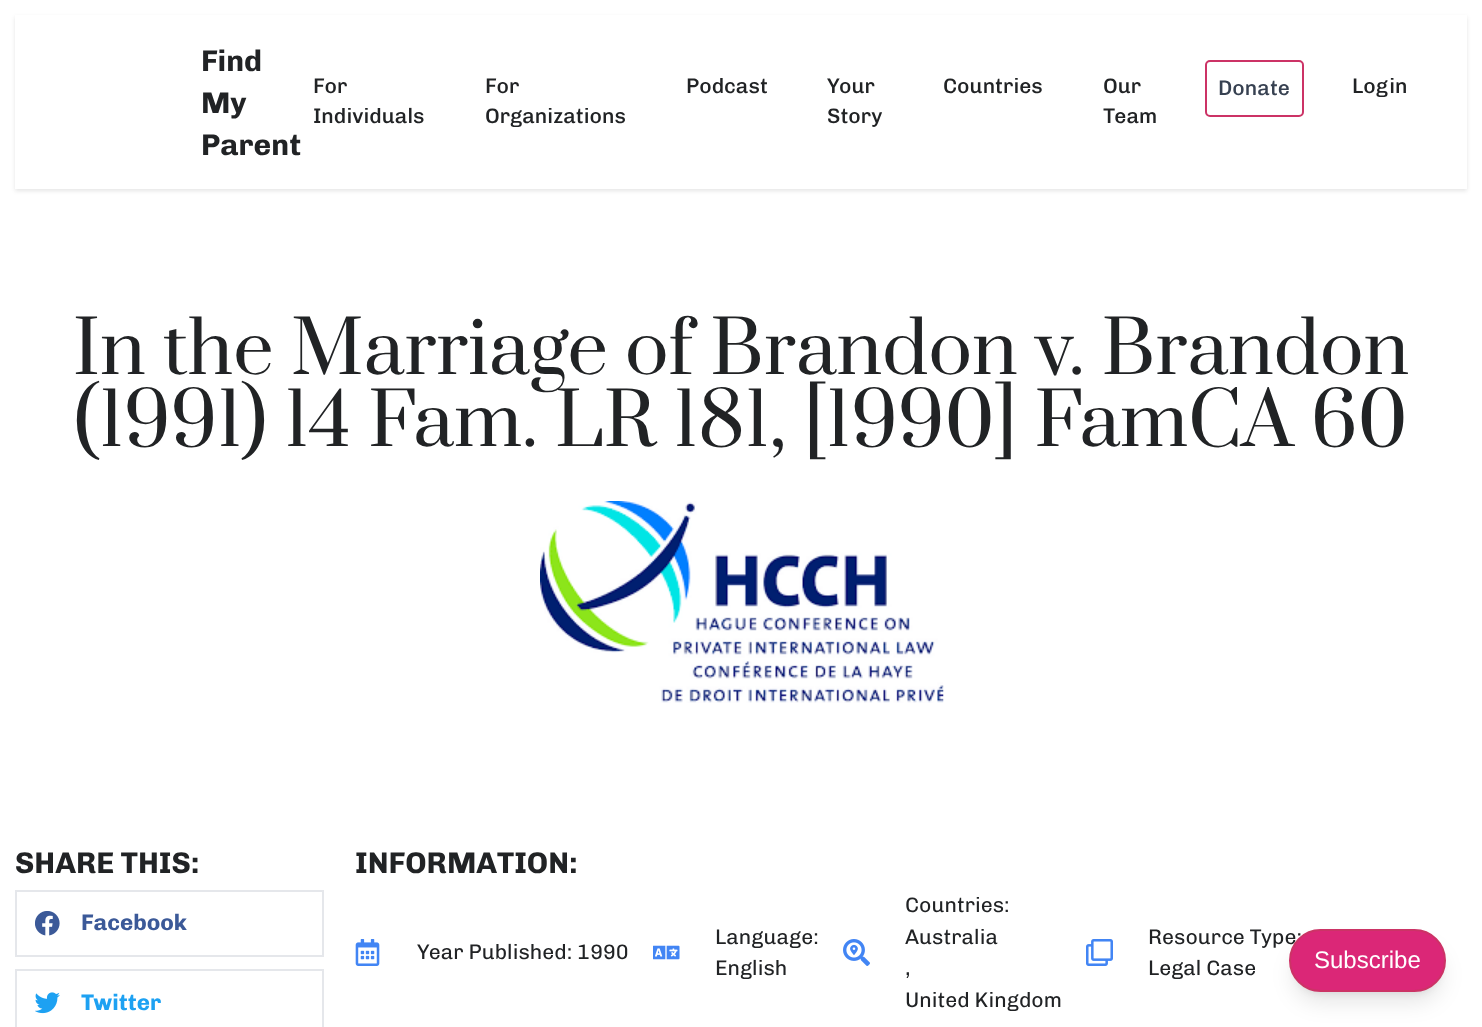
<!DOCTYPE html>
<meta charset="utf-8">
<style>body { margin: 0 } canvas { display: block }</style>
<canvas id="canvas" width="1482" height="1027"></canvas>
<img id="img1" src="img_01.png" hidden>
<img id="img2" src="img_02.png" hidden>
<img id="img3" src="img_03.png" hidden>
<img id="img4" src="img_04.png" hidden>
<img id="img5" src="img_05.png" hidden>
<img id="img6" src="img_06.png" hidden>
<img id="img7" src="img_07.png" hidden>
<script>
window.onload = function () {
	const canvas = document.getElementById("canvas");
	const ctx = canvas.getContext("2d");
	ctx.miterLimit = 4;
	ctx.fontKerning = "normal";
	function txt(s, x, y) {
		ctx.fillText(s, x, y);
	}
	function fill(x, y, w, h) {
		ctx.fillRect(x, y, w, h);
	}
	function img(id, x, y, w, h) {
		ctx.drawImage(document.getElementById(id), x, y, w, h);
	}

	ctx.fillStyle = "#FFFFFF";
	fill(0, 0, 1482, 1027);
	ctx.save();
	ctx.beginPath();
	ctx.moveTo(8, 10);
	ctx.lineTo(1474, 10);
	ctx.lineTo(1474, 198);
	ctx.lineTo(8, 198);
	ctx.closePath();
	ctx.moveTo(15, 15);
	ctx.lineTo(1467, 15);
	ctx.lineTo(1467, 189);
	ctx.lineTo(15, 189);
	ctx.closePath();
	ctx.clip("evenodd");
	ctx.fillStyle = "rgba(0, 0, 0, 0.1)";
	ctx.filter = "blur(2px)";
	ctx.beginPath();
	ctx.rect(15, 17, 1452, 174);
	ctx.fill();
	ctx.filter = "none";
	ctx.restore();
	ctx.beginPath();
	ctx.roundRect(1206, 61, 97, 55, 4);
	ctx.strokeStyle = "#CC3366";
	ctx.lineWidth = 2;
	ctx.stroke();
	img("img1", 540, 501, 404, 202);
	ctx.strokeStyle = "#E5E7EB";
	ctx.strokeRect(16, 891, 307, 65);
	img("img2", 35, 911, 25, 25);
	ctx.strokeRect(16, 970, 307, 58);
	img("img3", 35, 992, 25, 22);
	img("img4", 355, 939, 25, 27);
	img("img5", 653, 945, 27, 15);
	img("img6", 843, 939, 27, 27);
	img("img7", 1086, 939, 27, 27);
	ctx.fillStyle = "rgba(0, 0, 0, 0.1)";
	ctx.filter = "blur(4.5px)";
	ctx.beginPath();
	ctx.roundRect(1295, 941, 145, 51, 25.5);
	ctx.fill();
	ctx.filter = "none";
	ctx.filter = "blur(11px)";
	ctx.beginPath();
	ctx.roundRect(1293, 948, 149, 54, 27);
	ctx.fill();
	ctx.filter = "none";
	ctx.font = "bold 30px Chivo";
	ctx.fillStyle = "#212325";
	txt("Find", 201, 71);
	txt("My", 201, 113);
	txt("Parent", 201, 155);
	ctx.font = "500 21px Chivo";
	txt("For", 313, 93);
	txt("Individuals", 313, 123);
	txt("For", 485, 93);
	txt("Organizations", 485, 123);
	txt("Podcast", 686, 93);
	txt("Your", 827, 93);
	txt("Story", 827, 123);
	txt("Countries", 943, 93);
	txt("Our", 1103, 93);
	txt("Team", 1103, 123);
	ctx.fillStyle = "#374151";
	txt("Donate", 1218, 95);
	ctx.fillStyle = "#212325";
	txt("Login", 1352, 93);
	ctx.font = "72px Prata";
	txt("In the Marriage of Brandon v. Brandon", 73, 374);
	txt("(1991) 14 Fam. LR 181, [1990] FamCA 60", 74, 446);
	ctx.font = "bold 30px Chivo";
	txt("SHARE THIS:", 15, 873);
	ctx.font = "bold 22.5px Chivo";
	ctx.fillStyle = "#3B5998";
	txt("Facebook", 81, 930);
	ctx.fillStyle = "#1DA1F2";
	txt("Twitter", 81, 1010);
	ctx.font = "bold 30px Chivo";
	ctx.fillStyle = "#212325";
	txt("INFORMATION:", 355, 873);
	ctx.font = "21px Chivo";
	txt("Year Published: 1990", 417, 959);
	txt("Language:", 715, 944);
	txt("English", 715, 975);
	txt("Countries:", 905, 912);
	txt("Australia", 905, 944);
	txt(",", 905, 975);
	txt("United Kingdom", 905, 1007);
	txt("Resource Type:", 1148, 944);
	txt("Legal Case", 1148, 975);
	ctx.fillStyle = "#DB2777";
	ctx.beginPath();
	ctx.roundRect(1290, 930, 155, 61, 30.5);
	ctx.fill();
	ctx.strokeStyle = "#CC3366";
	ctx.stroke();
	ctx.font = "24px Liberation Sans";
	ctx.fillStyle = "#FFFFFF";
	txt("Subscribe", 1314, 968);
};
</script>
